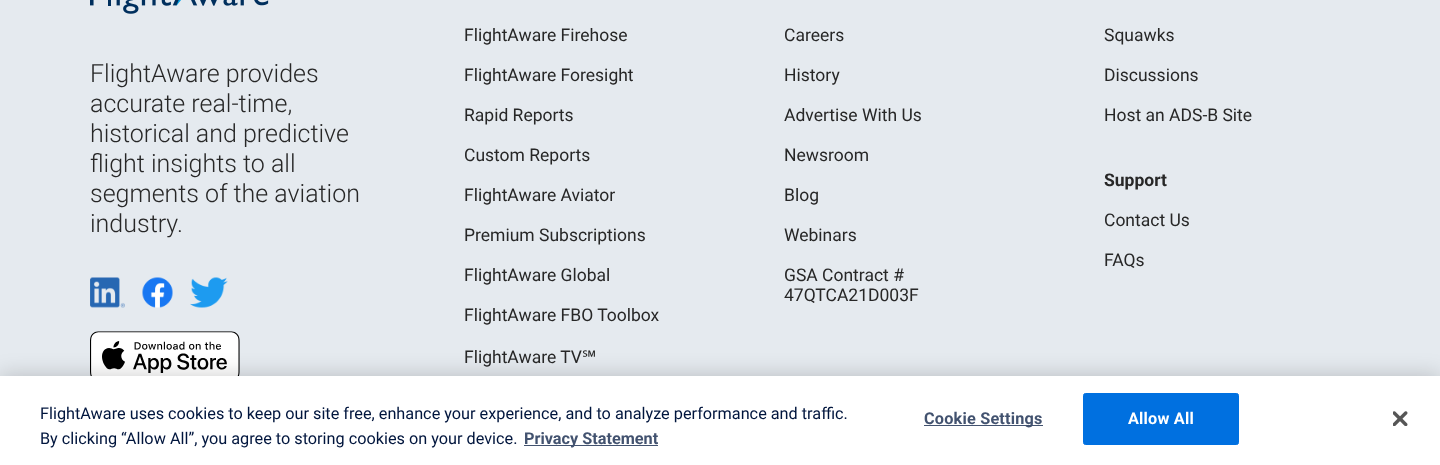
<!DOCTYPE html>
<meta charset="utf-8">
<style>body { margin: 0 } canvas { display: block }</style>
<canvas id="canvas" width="1440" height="465"></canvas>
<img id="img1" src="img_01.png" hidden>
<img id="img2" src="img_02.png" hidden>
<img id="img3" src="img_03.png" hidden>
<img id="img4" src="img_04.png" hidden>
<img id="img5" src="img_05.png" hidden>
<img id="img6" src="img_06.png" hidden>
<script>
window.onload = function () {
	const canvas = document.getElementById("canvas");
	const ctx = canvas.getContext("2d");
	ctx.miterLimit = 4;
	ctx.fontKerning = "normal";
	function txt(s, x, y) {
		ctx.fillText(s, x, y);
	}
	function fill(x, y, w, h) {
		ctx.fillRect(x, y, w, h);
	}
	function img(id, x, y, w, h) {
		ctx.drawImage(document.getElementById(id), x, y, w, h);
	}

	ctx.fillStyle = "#E5EAEF";
	fill(0, 0, 1440, 465);
	img("img1", 90, 0, 179, 14);
	img("img2", 90, 277, 35, 31);
	img("img3", 142, 277, 31, 31);
	img("img4", 190, 277, 38, 31);
	img("img5", 90, 331, 150, 45);
	ctx.fillStyle = "rgba(0, 0, 0, 0.2)";
	ctx.filter = "blur(11px)";
	ctx.beginPath();
	ctx.rect(0, 376, 1440, 89);
	ctx.fill();
	ctx.filter = "none";
	ctx.fillStyle = "#FFFFFF";
	fill(0, 376, 1440, 89);
	ctx.fillStyle = "#42526F";
	fill(524, 445, 134, 1);
	fill(924, 425, 119, 1);
	ctx.fillStyle = "#0070E0";
	ctx.beginPath();
	ctx.roundRect(1083.5, 393.5, 155, 51, 2);
	ctx.fill();
	ctx.strokeStyle = "#0070E0";
	ctx.stroke();
	img("img6", 1393, 411, 15, 15);
	ctx.font = "300 25px Roboto";
	ctx.fillStyle = "#272727";
	txt("FlightAware provides", 90, 82);
	txt("accurate real-time,", 90, 112);
	txt("historical and predictive", 90, 142);
	txt("flight insights to all", 90, 172);
	txt("segments of the aviation", 90, 202);
	txt("industry.", 90, 232);
	ctx.font = "17.5px Roboto";
	txt("FlightAware Firehose", 464, 41);
	txt("FlightAware Foresight", 464, 81);
	txt("Rapid Reports", 464, 121);
	txt("Custom Reports", 464, 161);
	txt("FlightAware Aviator", 464, 201);
	txt("Premium Subscriptions", 464, 241);
	txt("FlightAware Global", 464, 281);
	txt("FlightAware FBO Toolbox", 464, 321);
	txt("FlightAware TV", 464, 363);
	ctx.font = "17.5px Noto Sans";
	txt("℠", 582, 363);
	ctx.font = "17.5px Roboto";
	txt("Careers", 784, 41);
	txt("History", 784, 81);
	txt("Advertise With Us", 784, 121);
	txt("Newsroom", 784, 161);
	txt("Blog", 784, 201);
	txt("Webinars", 784, 241);
	txt("GSA Contract #", 784, 281);
	txt("47QTCA21D003F", 784, 301);
	txt("Squawks", 1104, 41);
	txt("Discussions", 1104, 81);
	txt("Host an ADS-B Site", 1104, 121);
	ctx.font = "bold 17.5px Roboto";
	txt("Support", 1104, 186);
	ctx.font = "17.5px Roboto";
	txt("Contact Us", 1104, 226);
	txt("FAQs", 1104, 266);
	ctx.font = "16.25px Roboto";
	ctx.fillStyle = "#00153D";
	txt("FlightAware uses cookies to keep our site free, enhance your experience, and to analyze performance and traffic.", 40, 419);
	txt("By clicking “Allow All”, you agree to storing cookies on your device.", 40, 444);
	ctx.font = "bold 16.25px Roboto";
	ctx.fillStyle = "#42526F";
	txt("Privacy Statement", 524, 444);
	ctx.letterSpacing = "0.2px";
	txt("Cookie Settings", 924, 424);
	ctx.fillStyle = "#FFFFFF";
	txt("Allow All", 1128, 424);
};
</script>
